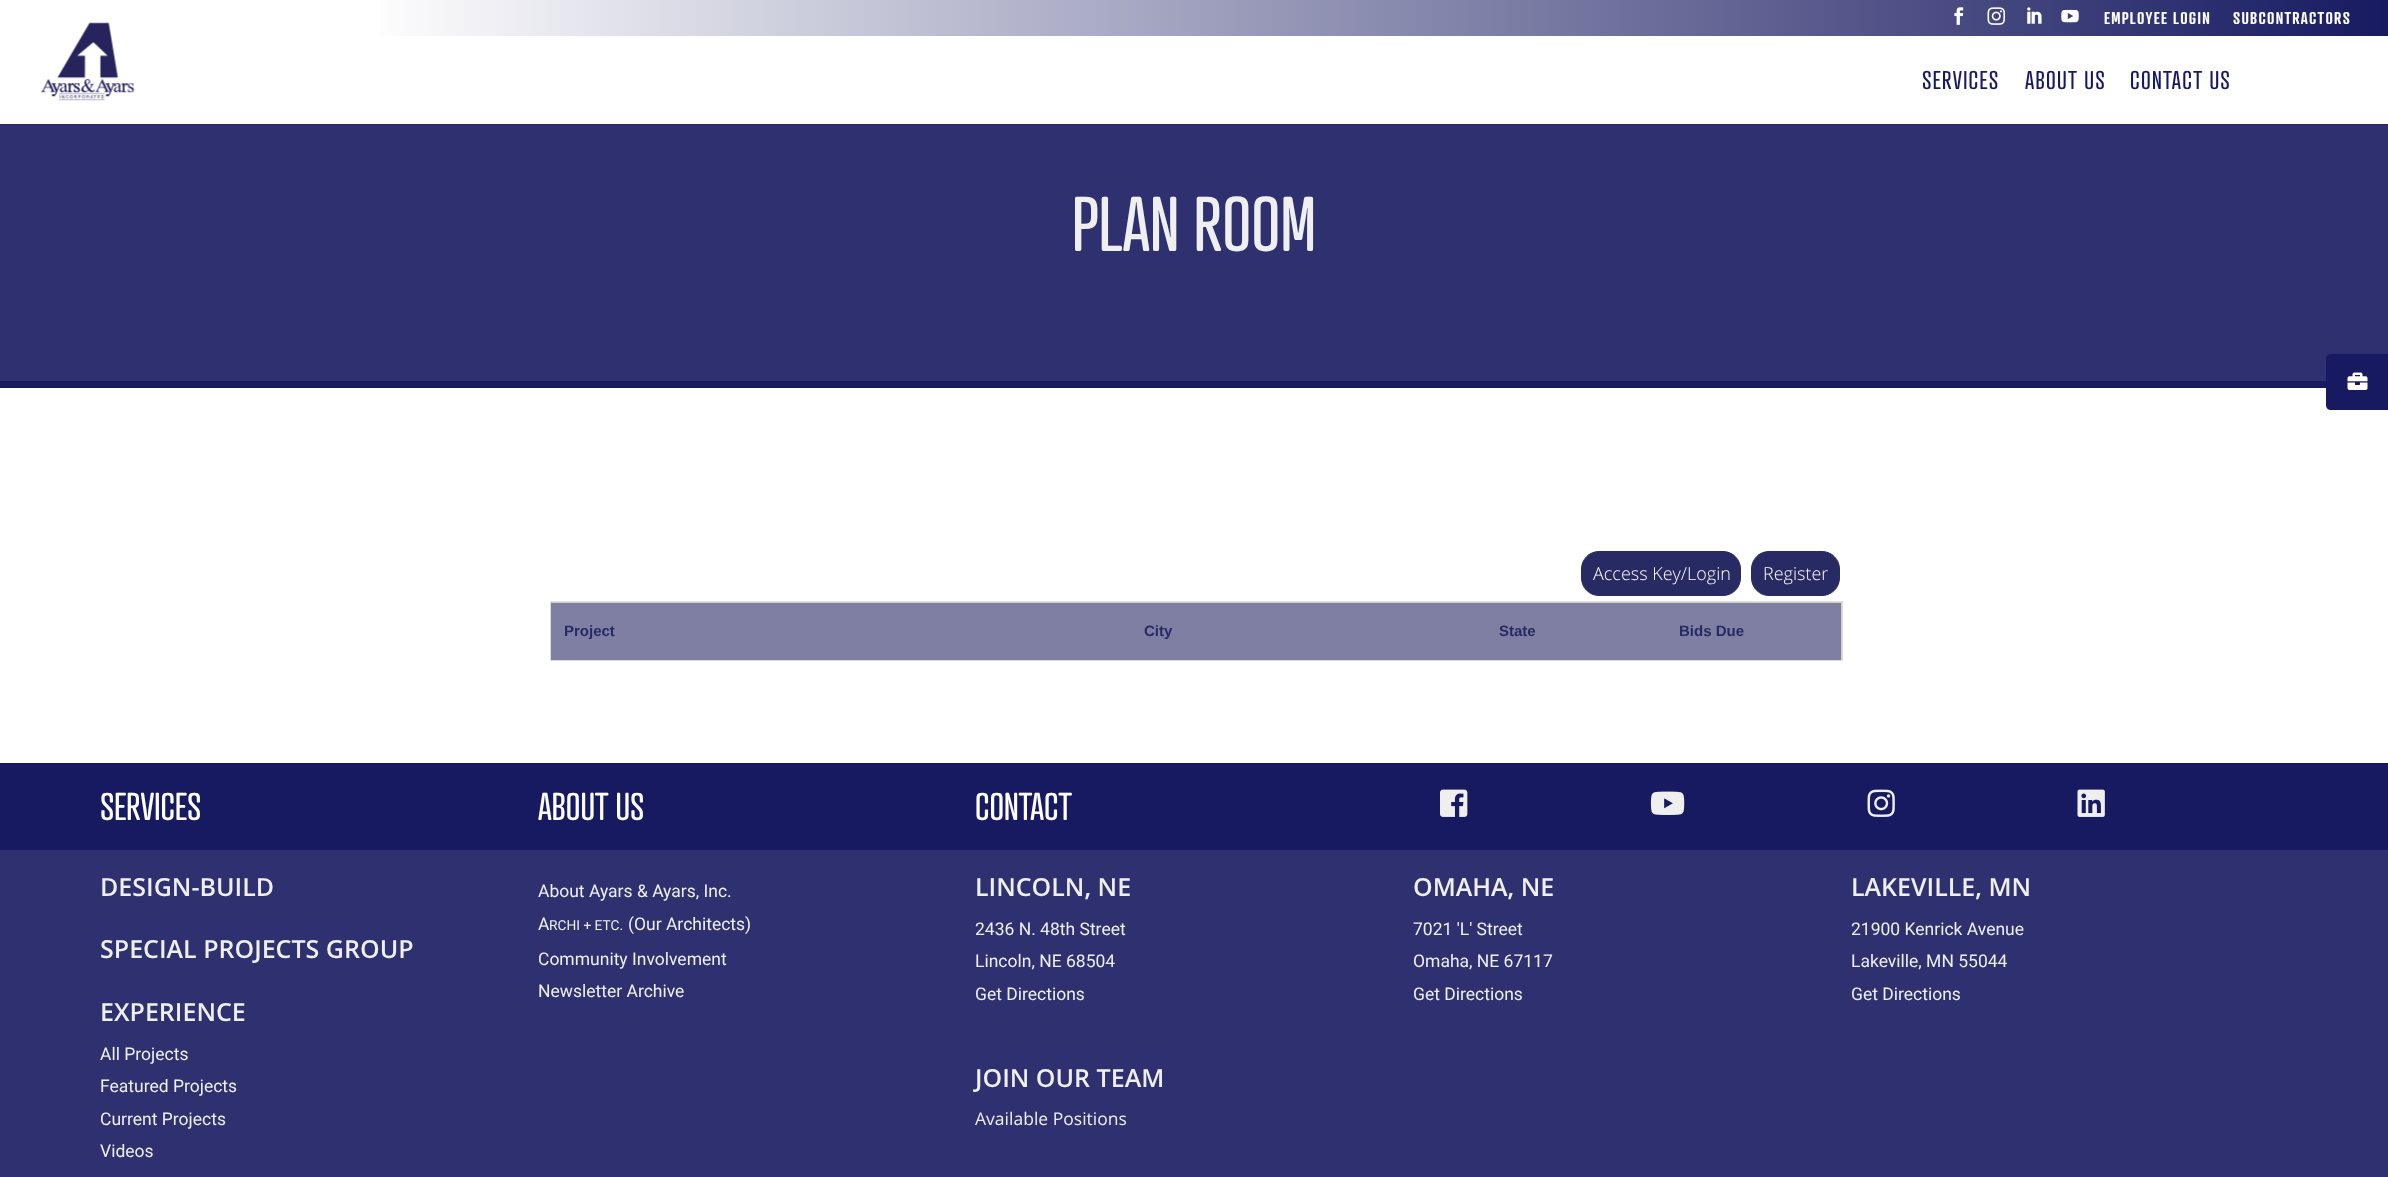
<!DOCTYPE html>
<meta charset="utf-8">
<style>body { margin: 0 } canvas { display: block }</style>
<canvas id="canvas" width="2388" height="1177"></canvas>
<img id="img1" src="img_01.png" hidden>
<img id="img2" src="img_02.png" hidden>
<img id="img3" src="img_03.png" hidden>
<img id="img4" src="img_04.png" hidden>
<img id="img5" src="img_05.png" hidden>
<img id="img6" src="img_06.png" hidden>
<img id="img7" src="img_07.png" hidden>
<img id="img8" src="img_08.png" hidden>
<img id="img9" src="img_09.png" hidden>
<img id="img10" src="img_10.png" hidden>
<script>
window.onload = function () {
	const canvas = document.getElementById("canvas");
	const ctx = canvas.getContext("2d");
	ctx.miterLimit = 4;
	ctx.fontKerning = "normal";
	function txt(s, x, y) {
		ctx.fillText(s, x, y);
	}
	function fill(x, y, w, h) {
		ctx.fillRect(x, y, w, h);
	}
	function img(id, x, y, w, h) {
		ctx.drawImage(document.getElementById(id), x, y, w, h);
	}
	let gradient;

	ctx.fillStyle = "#FFFFFF";
	fill(0, 0, 2388, 1177);
	gradient = ctx.createLinearGradient(0, 18, 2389, 18);
	gradient.addColorStop(0.15, "#FFFFFF");
	gradient.addColorStop(1, "#171A60");
	ctx.fillStyle = gradient;
	fill(380, 0, 2008, 36);
	img("img1", 1954, 7, 10, 18);
	img("img2", 1987, 7, 18, 18);
	img("img3", 2027, 7, 15, 17);
	img("img4", 2061, 9, 18, 14);
	ctx.fillStyle = "#292B64";
	ctx.beginPath();
	ctx.moveTo(0, 124);
	ctx.lineTo(0, 125);
	ctx.lineTo(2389, 125);
	ctx.lineTo(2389, 38);
	ctx.lineTo(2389, 124);
	ctx.closePath();
	ctx.fill();
	img("img5", 40, 22, 95, 79);
	ctx.fillStyle = "#2E306F";
	fill(0, 125, 2388, 256);
	ctx.fillStyle = "#171A60";
	fill(0, 381, 2326, 7);
	ctx.beginPath();
	ctx.moveTo(2331, 354);
	ctx.lineTo(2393, 354);
	ctx.lineTo(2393, 410);
	ctx.lineTo(2331, 410);
	ctx.bezierCurveTo(2328, 410, 2326, 408, 2326, 405);
	ctx.lineTo(2326, 359);
	ctx.bezierCurveTo(2326, 356, 2328, 354, 2331, 354);
	ctx.closePath();
	ctx.fill();
	img("img6", 2347, 372, 21, 18);
	ctx.fillStyle = "#282A64";
	ctx.beginPath();
	ctx.roundRect(1581.5, 551.5, 159, 44, 17.5);
	ctx.fill();
	ctx.strokeStyle = "#282A64";
	ctx.stroke();
	ctx.beginPath();
	ctx.roundRect(1751.5, 551.5, 88, 44, 17.5);
	ctx.fill();
	ctx.stroke();
	ctx.fillStyle = "#D4D0C8";
	ctx.beginPath();
	ctx.rect(550.5, 601.5, 1292, 59);
	ctx.fill();
	ctx.strokeStyle = "#DDDDDD";
	ctx.stroke();
	ctx.fillStyle = "#7E7FA2";
	fill(551, 603, 1290, 57);
	ctx.fillStyle = "#171A60";
	fill(0, 763, 2388, 87);
	img("img7", 1440, 789, 28, 28);
	img("img8", 1650, 791, 35, 24);
	img("img9", 1867, 789, 28, 28);
	img("img10", 2077, 789, 28, 28);
	ctx.fillStyle = "#2E306F";
	fill(0, 850, 2388, 327);
	ctx.letterSpacing = "1.25px";
	ctx.font = "600 16.5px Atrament";
	ctx.fillStyle = "#FFFFFF";
	txt("EMPLOYEE LOGIN", 2104, 24);
	txt("SUBCONTRACTORS", 2233, 24);
	ctx.font = "25px Atrament";
	ctx.fillStyle = "#171A60";
	txt("SERVICES", 1922, 89);
	txt("ABOUT US", 2025, 89);
	txt("CONTACT US", 2130, 89);
	ctx.letterSpacing = "0px";
	ctx.font = "75px Atrament";
	ctx.fillStyle = "#EFEFEF";
	txt("PLAN ROOM", 1072, 251);
	ctx.font = "300 18px Open Sans";
	ctx.fillStyle = "#FFFFFF";
	txt("Access Key/Login", 1593, 580);
	txt("Register", 1763, 580);
	ctx.font = "bold 15px Liberation Sans";
	ctx.fillStyle = "#282A64";
	txt("Project", 564, 636);
	txt("City", 1144, 636);
	txt("State", 1499, 636);
	txt("Bids Due", 1679, 636);
	ctx.font = "37.5px Atrament";
	ctx.fillStyle = "#FFFFFF";
	txt("SERVICES", 100, 820);
	txt("ABOUT US", 538, 820);
	txt("CONTACT", 975, 820);
	ctx.font = "600 25px Open Sans";
	ctx.fillStyle = "#EFEFEF";
	txt("DESIGN-BUILD", 100, 896);
	txt("SPECIAL PROJECTS GROUP", 100, 958);
	txt("EXPERIENCE", 100, 1021);
	ctx.font = "17.5px Roboto";
	txt("All Projects", 100, 1060);
	txt("Featured Projects", 100, 1092);
	txt("Current Projects", 100, 1125);
	txt("Videos", 100, 1157);
	txt("About Ayars & Ayars, Inc.", 538, 897);
	txt("A", 538, 930);
	ctx.font = "13.75px Roboto";
	txt("RCHI + ETC.", 549, 930);
	ctx.font = "17.5px Roboto";
	txt("(Our Architects)", 628, 930);
	txt("Community Involvement", 538, 965);
	txt("Newsletter Archive", 538, 997);
	ctx.font = "600 25px Open Sans";
	txt("LINCOLN, NE", 975, 896);
	ctx.font = "17.5px Roboto";
	txt("2436 N. 48th Street", 975, 935);
	txt("Lincoln, NE 68504", 975, 967);
	txt("Get Directions", 975, 1000);
	ctx.font = "600 25px Open Sans";
	txt("JOIN OUR TEAM", 975, 1087);
	ctx.font = "17.5px Open Sans";
	txt("Available Positions", 975, 1125);
	ctx.font = "600 25px Open Sans";
	txt("OMAHA, NE", 1413, 896);
	ctx.font = "17.5px Roboto";
	txt("7021 'L' Street", 1413, 935);
	txt("Omaha, NE 67117", 1413, 967);
	txt("Get Directions", 1413, 1000);
	ctx.font = "600 25px Open Sans";
	txt("LAKEVILLE, MN", 1851, 896);
	ctx.font = "17.5px Roboto";
	txt("21900 Kenrick Avenue", 1851, 935);
	txt("Lakeville, MN 55044", 1851, 967);
	txt("Get Directions", 1851, 1000);
};
</script>
